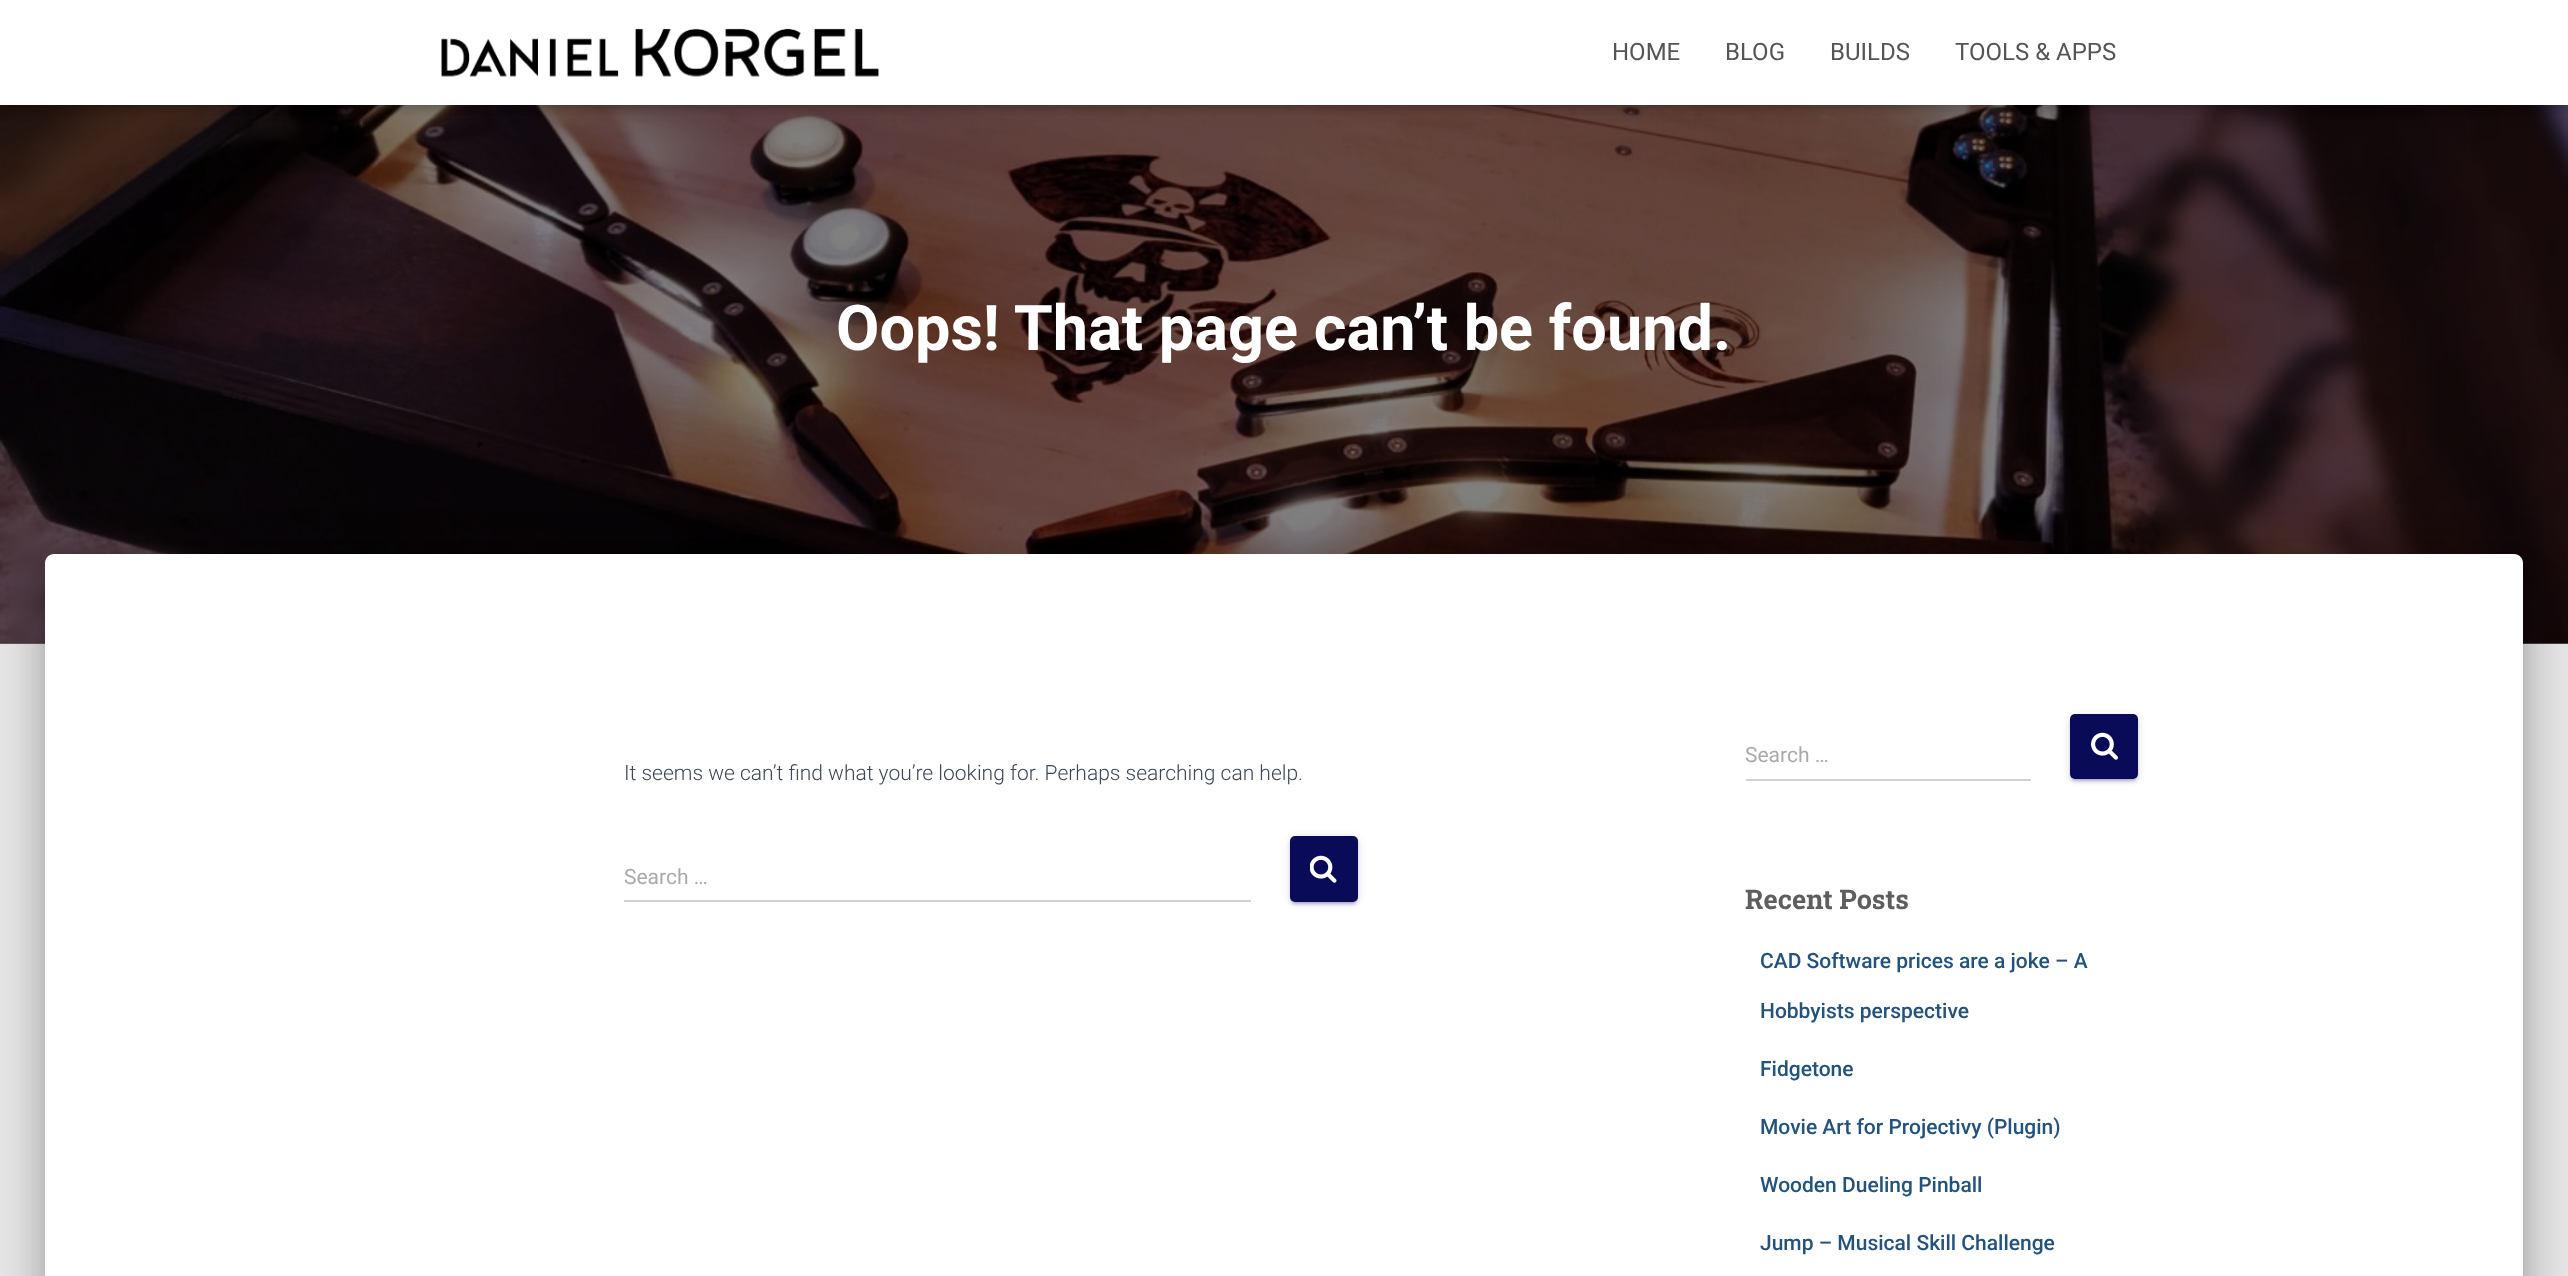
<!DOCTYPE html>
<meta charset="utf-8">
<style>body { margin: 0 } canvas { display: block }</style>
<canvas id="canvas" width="2568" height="1276"></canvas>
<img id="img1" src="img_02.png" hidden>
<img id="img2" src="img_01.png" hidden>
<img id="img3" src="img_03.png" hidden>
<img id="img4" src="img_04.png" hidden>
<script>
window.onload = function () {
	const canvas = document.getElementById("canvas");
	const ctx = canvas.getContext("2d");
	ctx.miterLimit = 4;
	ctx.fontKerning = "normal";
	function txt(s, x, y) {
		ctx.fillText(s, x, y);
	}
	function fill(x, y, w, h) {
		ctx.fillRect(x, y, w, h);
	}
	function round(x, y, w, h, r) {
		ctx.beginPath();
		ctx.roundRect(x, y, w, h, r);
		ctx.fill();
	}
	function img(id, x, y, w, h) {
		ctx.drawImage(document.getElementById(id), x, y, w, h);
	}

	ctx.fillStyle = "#E5E5E5";
	fill(0, 0, 2568, 1276);
	ctx.fillStyle = "#737373";
	fill(0, 643, 2568, 1);
	img("img1", 0, 105, 2568, 539);
	ctx.fillStyle = "rgba(0, 0, 0, 0.1)";
	ctx.filter = "blur(4px)";
	ctx.beginPath();
	ctx.rect(3, 9, 2562, 99);
	ctx.fill();
	ctx.filter = "none";
	ctx.fillStyle = "rgba(0, 0, 0, 0.12)";
	ctx.filter = "blur(7.5px)";
	ctx.beginPath();
	ctx.rect(0, 2, 2568, 105);
	ctx.fill();
	ctx.filter = "none";
	ctx.fillStyle = "rgba(0, 0, 0, 0.42)";
	ctx.filter = "blur(7.5px)";
	ctx.beginPath();
	ctx.rect(9, 11, 2550, 87);
	ctx.fill();
	ctx.filter = "none";
	ctx.fillStyle = "#FFFFFF";
	fill(0, 0, 2568, 105);
	img("img2", 441, 28, 438, 49);
	ctx.fillStyle = "rgba(0, 0, 0, 0.2)";
	ctx.filter = "blur(7.5px)";
	ctx.beginPath();
	ctx.roundRect(53, 573, 2463, 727, 1.5);
	ctx.fill();
	ctx.filter = "none";
	ctx.fillStyle = "rgba(0, 0, 0, 0.12)";
	ctx.filter = "blur(22.5px)";
	ctx.beginPath();
	ctx.roundRect(38, 555, 2493, 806, 17);
	ctx.fill();
	ctx.filter = "none";
	ctx.fillStyle = "rgba(0, 0, 0, 0.14)";
	ctx.filter = "blur(18px)";
	ctx.beginPath();
	ctx.roundRect(42, 575, 2484, 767, 12);
	ctx.fill();
	ctx.filter = "none";
	ctx.fillStyle = "#FFFFFF";
	ctx.beginPath();
	ctx.moveTo(54, 554);
	ctx.lineTo(2514, 554);
	ctx.bezierCurveTo(2519, 554, 2523, 558, 2523, 563);
	ctx.lineTo(2523, 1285);
	ctx.lineTo(45, 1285);
	ctx.lineTo(45, 563);
	ctx.bezierCurveTo(45, 558, 49, 554, 54, 554);
	ctx.closePath();
	ctx.fill();
	ctx.fillStyle = "#D2D2D2";
	fill(624, 900, 627, 2);
	ctx.fillStyle = "rgba(9, 11, 89, 0.12)";
	ctx.filter = "blur(4px)";
	ctx.beginPath();
	ctx.roundRect(1290, 837, 68, 66, 5);
	ctx.fill();
	ctx.filter = "none";
	ctx.fillStyle = "rgba(9, 11, 89, 0.2)";
	ctx.filter = "blur(1px)";
	ctx.beginPath();
	ctx.roundRect(1293, 843, 62, 60, 1.5);
	ctx.fill();
	ctx.filter = "none";
	ctx.fillStyle = "rgba(9, 11, 89, 0.14)";
	ctx.filter = "blur(1.5px)";
	ctx.beginPath();
	ctx.roundRect(1290, 839, 68, 66, 5);
	ctx.fill();
	ctx.filter = "none";
	ctx.fillStyle = "#090B59";
	round(1290, 836, 68, 66, 5);
	img("img3", 1310, 855, 27, 28);
	ctx.fillStyle = "#D2D2D2";
	fill(1746, 779, 285, 2);
	ctx.fillStyle = "rgba(9, 11, 89, 0.12)";
	ctx.filter = "blur(4px)";
	ctx.beginPath();
	ctx.roundRect(2070, 716, 68, 64, 5);
	ctx.fill();
	ctx.filter = "none";
	ctx.fillStyle = "rgba(9, 11, 89, 0.2)";
	ctx.filter = "blur(1px)";
	ctx.beginPath();
	ctx.roundRect(2073, 722, 62, 58, 1.5);
	ctx.fill();
	ctx.filter = "none";
	ctx.fillStyle = "rgba(9, 11, 89, 0.14)";
	ctx.filter = "blur(1.5px)";
	ctx.beginPath();
	ctx.roundRect(2070, 717, 68, 65, 5);
	ctx.fill();
	ctx.filter = "none";
	ctx.fillStyle = "#090B59";
	round(2070, 714, 68, 65, 5);
	img("img4", 2091, 732, 27, 28);
	ctx.font = "24px Roboto";
	ctx.fillStyle = "#555555";
	txt("HOME", 1612, 60);
	txt("BLOG", 1725, 60);
	txt("BUILDS", 1830, 60);
	txt("TOOLS & APPS", 1955, 60);
	ctx.font = "bold 63px Roboto";
	ctx.fillStyle = "#FFFFFF";
	txt("Oops! That page can’t be found.", 836, 350);
	ctx.font = "300 21px Roboto";
	ctx.fillStyle = "#3C4858";
	txt("It seems we can’t find what you’re looking for. Perhaps searching can help.", 624, 780);
	ctx.font = "21px Roboto";
	ctx.fillStyle = "#AAAAAA";
	txt("Search …", 624, 884);
	txt("Search …", 1745, 762);
	ctx.font = "bold 27px Roboto Slab";
	ctx.fillStyle = "#5E5E5E";
	txt("Recent Posts", 1745, 909);
	ctx.font = "500 21px Roboto";
	ctx.fillStyle = "#23527C";
	txt("CAD Software prices are a joke – A", 1760, 968);
	txt("Hobbyists perspective", 1760, 1018);
	txt("Fidgetone", 1760, 1076);
	txt("Movie Art for Projectivy (Plugin)", 1760, 1134);
	txt("Wooden Dueling Pinball", 1760, 1192);
	txt("Jump – Musical Skill Challenge", 1760, 1250);
};
</script>
